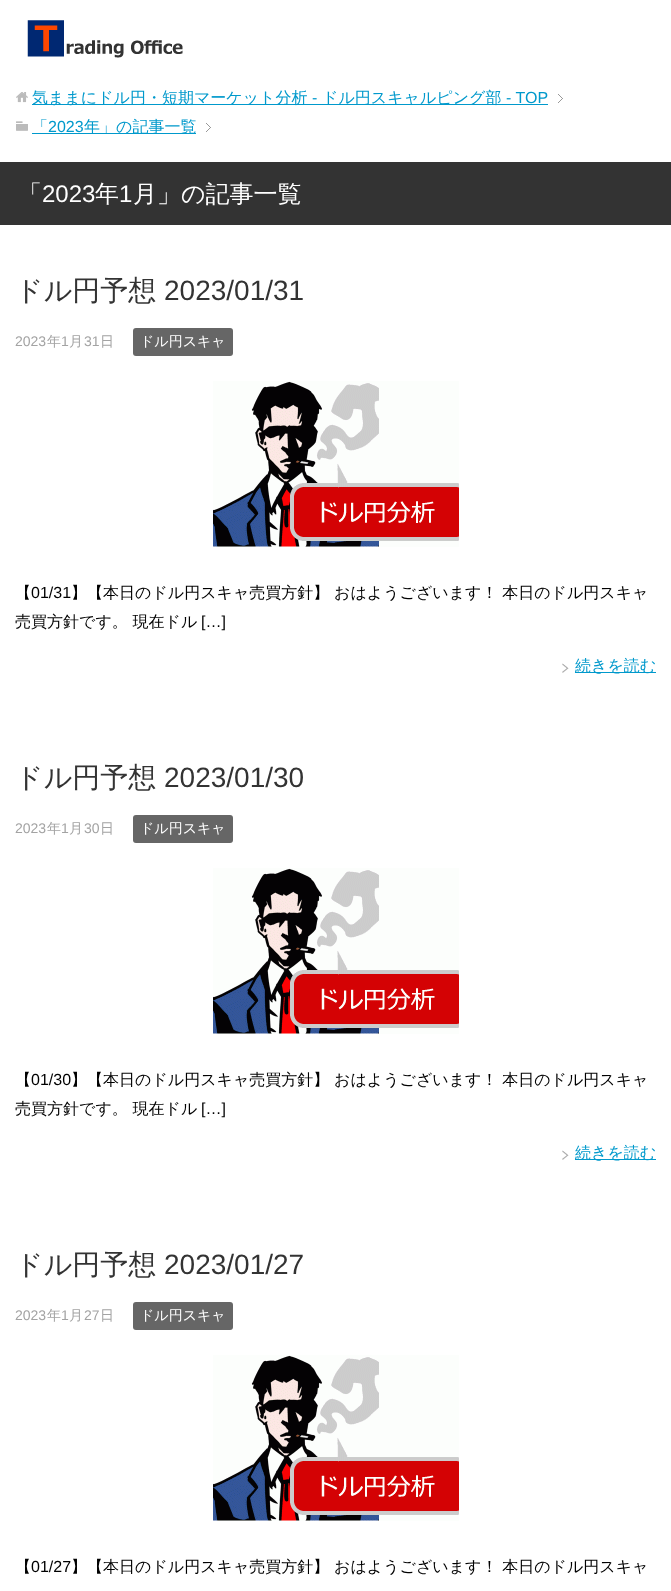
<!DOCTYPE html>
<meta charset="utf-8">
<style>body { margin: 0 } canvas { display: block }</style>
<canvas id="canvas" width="671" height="1591"></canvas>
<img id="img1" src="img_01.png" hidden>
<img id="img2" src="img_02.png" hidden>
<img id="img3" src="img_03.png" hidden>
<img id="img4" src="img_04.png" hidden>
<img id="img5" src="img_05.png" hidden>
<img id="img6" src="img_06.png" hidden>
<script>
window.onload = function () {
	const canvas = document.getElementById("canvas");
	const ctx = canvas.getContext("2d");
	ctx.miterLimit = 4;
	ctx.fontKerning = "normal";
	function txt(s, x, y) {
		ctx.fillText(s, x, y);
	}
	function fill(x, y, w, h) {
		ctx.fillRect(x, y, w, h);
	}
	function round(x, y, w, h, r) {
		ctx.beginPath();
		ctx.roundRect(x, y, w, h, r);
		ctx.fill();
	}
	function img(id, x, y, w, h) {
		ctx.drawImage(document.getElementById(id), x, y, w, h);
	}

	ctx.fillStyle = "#FFFFFF";
	fill(0, 0, 671, 1591);
	img("img1", 27, 20, 156, 38);
	img("img2", 558, 94, 5, 9);
	img("img3", 16, 92, 12, 11);
	ctx.fillStyle = "#0099CC";
	fill(32, 104, 516, 1);
	img("img2", 206, 123, 5, 9);
	img("img4", 16, 121, 12, 10);
	fill(32, 133, 164, 1);
	ctx.fillStyle = "#333333";
	fill(0, 162, 671, 63);
	ctx.fillStyle = "#666666";
	round(133, 328, 100, 28, 3);
	img("img5", 213, 381, 246, 166);
	img("img6", 562, 663, 7, 10);
	ctx.fillStyle = "#0099CC";
	fill(575, 672, 81, 1);
	ctx.fillStyle = "#666666";
	round(133, 815, 100, 28, 3);
	img("img5", 213, 868, 246, 166);
	img("img6", 562, 1150, 7, 10);
	ctx.fillStyle = "#0099CC";
	fill(575, 1159, 81, 1);
	ctx.fillStyle = "#666666";
	round(133, 1302, 100, 28, 3);
	img("img5", 213, 1355, 246, 166);
	ctx.font = "500 16px WenQuanYi Zen Hei";
	ctx.fillStyle = "#0099CC";
	txt("気ままにドル円・短期マーケット分析", 32, 103);
	ctx.font = "16px Liberation Sans";
	txt("-", 312, 103);
	ctx.font = "500 16px WenQuanYi Zen Hei";
	txt("ドル円スキャルピング部", 322, 103);
	ctx.font = "16px Liberation Sans";
	txt("- TOP", 506, 103);
	ctx.font = "500 16px WenQuanYi Zen Hei";
	txt("「", 32, 132);
	ctx.font = "16px Liberation Sans";
	txt("2023", 48, 132);
	ctx.font = "500 16px WenQuanYi Zen Hei";
	txt("年」の記事一覧", 84, 132);
	ctx.font = "500 24px WenQuanYi Zen Hei";
	ctx.fillStyle = "#FFFFFF";
	txt("「", 18, 202);
	ctx.font = "24px Liberation Sans";
	txt("2023", 42, 202);
	ctx.font = "500 24px WenQuanYi Zen Hei";
	txt("年", 95, 202);
	ctx.font = "24px Liberation Sans";
	txt("1", 119, 202);
	ctx.font = "500 24px WenQuanYi Zen Hei";
	txt("月」の記事一覧", 133, 202);
	ctx.font = "500 28px WenQuanYi Zen Hei";
	ctx.fillStyle = "#333333";
	txt("ドル円予想", 15, 300);
	ctx.font = "28px Liberation Sans";
	txt("2023/01/31", 164, 300);
	ctx.font = "14px Liberation Sans";
	ctx.fillStyle = "#A3A3A3";
	txt("2023", 15, 346);
	ctx.font = "500 14px WenQuanYi Zen Hei";
	txt("年", 47, 346);
	ctx.font = "14px Liberation Sans";
	txt("1", 61, 346);
	ctx.font = "500 14px WenQuanYi Zen Hei";
	txt("月", 69, 346);
	ctx.font = "14px Liberation Sans";
	txt("31", 84, 346);
	ctx.font = "500 14px WenQuanYi Zen Hei";
	txt("日", 100, 346);
	ctx.fillStyle = "#FFFFFF";
	txt("ドル円スキャ", 140, 346);
	ctx.font = "500 16px WenQuanYi Zen Hei";
	ctx.fillStyle = "#000000";
	txt("【", 15, 598);
	ctx.font = "16px Liberation Sans";
	txt("01/31", 31, 598);
	ctx.font = "500 16px WenQuanYi Zen Hei";
	txt("】【本日のドル円スキャ売買方針】 おはようございます！ 本日のドル円スキャ", 71, 598);
	txt("売買方針です。 現在ドル", 15, 627);
	ctx.font = "16px Liberation Sans";
	txt("[…]", 201, 627);
	ctx.font = "500 16px WenQuanYi Zen Hei";
	ctx.fillStyle = "#0099CC";
	txt("続きを読む", 575, 671);
	ctx.font = "500 28px WenQuanYi Zen Hei";
	ctx.fillStyle = "#333333";
	txt("ドル円予想", 15, 787);
	ctx.font = "28px Liberation Sans";
	txt("2023/01/30", 164, 787);
	ctx.font = "14px Liberation Sans";
	ctx.fillStyle = "#A3A3A3";
	txt("2023", 15, 833);
	ctx.font = "500 14px WenQuanYi Zen Hei";
	txt("年", 47, 833);
	ctx.font = "14px Liberation Sans";
	txt("1", 61, 833);
	ctx.font = "500 14px WenQuanYi Zen Hei";
	txt("月", 69, 833);
	ctx.font = "14px Liberation Sans";
	txt("30", 84, 833);
	ctx.font = "500 14px WenQuanYi Zen Hei";
	txt("日", 100, 833);
	ctx.fillStyle = "#FFFFFF";
	txt("ドル円スキャ", 140, 833);
	ctx.font = "500 16px WenQuanYi Zen Hei";
	ctx.fillStyle = "#000000";
	txt("【", 15, 1085);
	ctx.font = "16px Liberation Sans";
	txt("01/30", 31, 1085);
	ctx.font = "500 16px WenQuanYi Zen Hei";
	txt("】【本日のドル円スキャ売買方針】 おはようございます！ 本日のドル円スキャ", 71, 1085);
	txt("売買方針です。 現在ドル", 15, 1114);
	ctx.font = "16px Liberation Sans";
	txt("[…]", 201, 1114);
	ctx.font = "500 16px WenQuanYi Zen Hei";
	ctx.fillStyle = "#0099CC";
	txt("続きを読む", 575, 1158);
	ctx.font = "500 28px WenQuanYi Zen Hei";
	ctx.fillStyle = "#333333";
	txt("ドル円予想", 15, 1274);
	ctx.font = "28px Liberation Sans";
	txt("2023/01/27", 164, 1274);
	ctx.font = "14px Liberation Sans";
	ctx.fillStyle = "#A3A3A3";
	txt("2023", 15, 1320);
	ctx.font = "500 14px WenQuanYi Zen Hei";
	txt("年", 47, 1320);
	ctx.font = "14px Liberation Sans";
	txt("1", 61, 1320);
	ctx.font = "500 14px WenQuanYi Zen Hei";
	txt("月", 69, 1320);
	ctx.font = "14px Liberation Sans";
	txt("27", 84, 1320);
	ctx.font = "500 14px WenQuanYi Zen Hei";
	txt("日", 100, 1320);
	ctx.fillStyle = "#FFFFFF";
	txt("ドル円スキャ", 140, 1320);
	ctx.font = "500 16px WenQuanYi Zen Hei";
	ctx.fillStyle = "#000000";
	txt("【", 15, 1572);
	ctx.font = "16px Liberation Sans";
	txt("01/27", 31, 1572);
	ctx.font = "500 16px WenQuanYi Zen Hei";
	txt("】【本日のドル円スキャ売買方針】 おはようございます！ 本日のドル円スキャ", 71, 1572);
};
</script>
